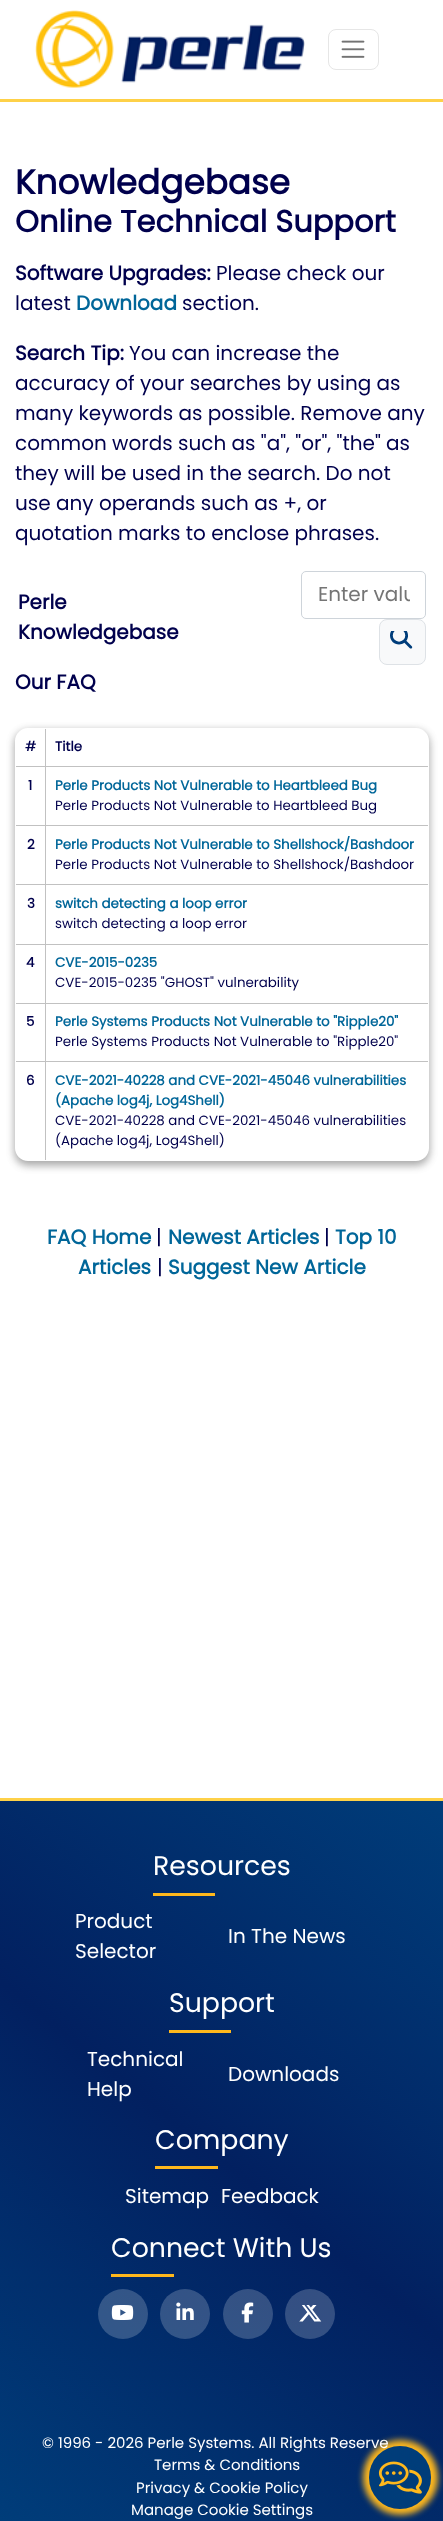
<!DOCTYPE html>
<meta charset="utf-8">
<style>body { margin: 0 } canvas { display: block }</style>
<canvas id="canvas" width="443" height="2521"></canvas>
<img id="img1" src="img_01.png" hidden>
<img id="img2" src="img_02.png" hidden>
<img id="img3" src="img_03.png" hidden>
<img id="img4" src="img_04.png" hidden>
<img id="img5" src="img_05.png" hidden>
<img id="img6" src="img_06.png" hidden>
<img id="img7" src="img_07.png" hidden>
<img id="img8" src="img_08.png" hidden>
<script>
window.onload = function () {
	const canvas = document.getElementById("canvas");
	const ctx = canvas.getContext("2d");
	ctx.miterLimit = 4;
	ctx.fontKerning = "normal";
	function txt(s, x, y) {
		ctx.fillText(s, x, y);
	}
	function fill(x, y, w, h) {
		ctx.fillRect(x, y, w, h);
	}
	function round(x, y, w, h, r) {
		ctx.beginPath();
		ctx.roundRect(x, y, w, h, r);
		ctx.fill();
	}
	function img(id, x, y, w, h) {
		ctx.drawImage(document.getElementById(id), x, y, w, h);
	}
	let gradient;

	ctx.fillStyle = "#FFFFFF";
	fill(0, 0, 443, 2521);
	ctx.fillStyle = "#FED148";
	fill(0, 99, 443, 3);
	img("img1", 35, 10, 270, 78);
	ctx.beginPath();
	ctx.roundRect(328.5, 29.5, 50, 40, 7.5);
	ctx.strokeStyle = "#E6E6E6";
	ctx.stroke();
	img("img2", 341, 40, 24, 18);
	ctx.beginPath();
	ctx.roundRect(301.5, 571.5, 124, 47, 4.5);
	ctx.strokeStyle = "#CED4DA";
	ctx.stroke();
	ctx.fillStyle = "#F8F9FA";
	ctx.beginPath();
	ctx.roundRect(379.5, 619.5, 46, 45, 7.5);
	ctx.fill();
	ctx.strokeStyle = "#DEE2E6";
	ctx.stroke();
	img("img3", 390, 631, 23, 18);
	ctx.save();
	ctx.beginPath();
	ctx.moveTo(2, 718);
	ctx.lineTo(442, 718);
	ctx.lineTo(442, 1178);
	ctx.lineTo(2, 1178);
	ctx.closePath();
	ctx.moveTo(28, 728);
	ctx.lineTo(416, 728);
	ctx.bezierCurveTo(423, 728, 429, 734, 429, 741);
	ctx.lineTo(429, 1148);
	ctx.bezierCurveTo(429, 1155, 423, 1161, 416, 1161);
	ctx.lineTo(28, 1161);
	ctx.bezierCurveTo(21, 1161, 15, 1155, 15, 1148);
	ctx.lineTo(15, 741);
	ctx.bezierCurveTo(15, 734, 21, 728, 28, 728);
	ctx.closePath();
	ctx.clip("evenodd");
	ctx.fillStyle = "rgba(0, 0, 0, 0.23)";
	ctx.filter = "blur(4px)";
	ctx.beginPath();
	ctx.roundRect(15, 731, 414, 434, 13);
	ctx.fill();
	ctx.filter = "none";
	ctx.fillStyle = "rgba(0, 0, 0, 0.16)";
	ctx.filter = "blur(4px)";
	ctx.beginPath();
	ctx.roundRect(15, 731, 414, 434, 13);
	ctx.fill();
	ctx.filter = "none";
	ctx.restore();
	ctx.fillStyle = "#C1C1C1";
	fill(45, 766, 383, 1);
	fill(45, 825, 383, 1);
	fill(45, 884, 383, 1);
	fill(45, 944, 383, 1);
	fill(45, 1003, 383, 1);
	fill(45, 1061, 383, 1);
	fill(45, 1061, 1, 99);
	fill(16, 1061, 30, 1);
	fill(45, 1003, 1, 60);
	fill(16, 1003, 30, 1);
	fill(45, 944, 1, 60);
	fill(16, 944, 30, 1);
	fill(45, 884, 1, 61);
	fill(16, 884, 30, 1);
	fill(45, 825, 1, 60);
	fill(16, 825, 30, 1);
	fill(45, 766, 1, 60);
	fill(16, 766, 30, 1);
	fill(45, 729, 1, 39);
	gradient = ctx.createLinearGradient(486, 1834, -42, 2487);
	gradient.addColorStop(0, "#003D7A");
	gradient.addColorStop(0.5, "#022060");
	gradient.addColorStop(1, "#003D7A");
	ctx.fillStyle = gradient;
	fill(0, 1801, 443, 720);
	ctx.fillStyle = "#FED148";
	fill(0, 1798, 443, 3);
	ctx.fillStyle = "#FFB81C";
	fill(153, 1893, 62, 3);
	fill(169, 2030, 62, 3);
	fill(155, 2166, 63, 3);
	fill(111, 2274, 63, 3);
	ctx.fillStyle = "rgba(255, 255, 255, 0.2)";
	ctx.beginPath();
	ctx.arc(123, 2314, 25, 0, Math.PI * 2);
	ctx.fill();
	img("img4", 111, 2305, 23, 15);
	ctx.beginPath();
	ctx.arc(185, 2314, 25, 0, Math.PI * 2);
	ctx.fill();
	img("img5", 176, 2302, 18, 18);
	ctx.beginPath();
	ctx.arc(248, 2314, 25, 0, Math.PI * 2);
	ctx.fill();
	img("img6", 241, 2302, 13, 21);
	ctx.beginPath();
	ctx.arc(310, 2314, 25, 0, Math.PI * 2);
	ctx.fill();
	img("img7", 299, 2305, 23, 17);
	ctx.fillStyle = "#FFB81C";
	ctx.filter = "blur(3px)";
	ctx.beginPath();
	ctx.roundRect(363, 2440, 75, 75, 37.5);
	ctx.fill();
	ctx.filter = "none";
	ctx.font = "bold 34.25px Poppins";
	ctx.fillStyle = "#00004D";
	txt("Knowledgebase", 15, 194);
	ctx.font = "bold 30.5px Poppins";
	txt("Online Technical Support", 15, 232);
	ctx.font = "bold 20px Poppins";
	txt("Software Upgrades:", 15, 280);
	ctx.font = "20px Poppins";
	txt("Please check our", 216, 280);
	txt("latest", 15, 310);
	ctx.font = "bold 20px Poppins";
	ctx.fillStyle = "#006699";
	txt("Download", 76, 310);
	ctx.font = "20px Poppins";
	ctx.fillStyle = "#00004D";
	txt("section.", 182, 310);
	ctx.font = "bold 20px Poppins";
	txt("Search Tip:", 15, 360);
	ctx.font = "20px Poppins";
	txt("You can increase the", 129, 360);
	txt("accuracy of your searches by using as", 15, 390);
	txt("many keywords as possible. Remove any", 15, 420);
	txt("common words such as \"a\", \"or\", \"the\" as", 15, 450);
	txt("they will be used in the search. Do not", 15, 480);
	txt("use any operands such as +, or", 15, 510);
	txt("quotation marks to enclose phrases.", 15, 540);
	ctx.font = "bold 20px Poppins";
	txt("Perle", 18, 609);
	txt("Knowledgebase", 18, 639);
	ctx.save();
	ctx.beginPath();
	ctx.rect(318, 579, 92, 31);
	ctx.clip();
	ctx.font = "20px Poppins";
	ctx.fillStyle = "#757575";
	txt("Enter valu", 318, 601);
	ctx.restore();
	txt("Our FAQ", 15, 689);
	ctx.font = "bold 13.4px Poppins";
	txt("#", 25, 751);
	txt("Title", 55, 751);
	txt("1", 28, 790);
	ctx.fillStyle = "#006699";
	txt("Perle Products Not Vulnerable to Heartbleed Bug", 55, 790);
	ctx.font = "13.4px Poppins";
	ctx.fillStyle = "#00004D";
	txt("Perle Products Not Vulnerable to Heartbleed Bug", 55, 810);
	ctx.font = "bold 13.4px Poppins";
	txt("2", 27, 849);
	ctx.fillStyle = "#006699";
	txt("Perle Products Not Vulnerable to Shellshock/Bashdoor", 55, 849);
	ctx.font = "13.4px Poppins";
	ctx.fillStyle = "#00004D";
	txt("Perle Products Not Vulnerable to Shellshock/Bashdoor", 55, 869);
	ctx.font = "bold 13.4px Poppins";
	txt("3", 27, 908);
	ctx.fillStyle = "#006699";
	txt("switch detecting a loop error", 55, 908);
	ctx.font = "13.4px Poppins";
	ctx.fillStyle = "#00004D";
	txt("switch detecting a loop error", 55, 928);
	ctx.font = "bold 13.4px Poppins";
	txt("4", 26, 967);
	ctx.fillStyle = "#006699";
	txt("CVE-2015-0235", 55, 967);
	ctx.font = "13.4px Poppins";
	ctx.fillStyle = "#00004D";
	txt("CVE-2015-0235 \"GHOST\" vulnerability", 55, 987);
	ctx.font = "bold 13.4px Poppins";
	txt("5", 26, 1026);
	ctx.fillStyle = "#006699";
	txt("Perle Systems Products Not Vulnerable to \"Ripple20\"", 55, 1026);
	ctx.font = "13.4px Poppins";
	ctx.fillStyle = "#00004D";
	txt("Perle Systems Products Not Vulnerable to \"Ripple20\"", 55, 1046);
	ctx.font = "bold 13.4px Poppins";
	txt("6", 26, 1085);
	ctx.fillStyle = "#006699";
	txt("CVE-2021-40228 and CVE-2021-45046 vulnerabilities", 55, 1085);
	txt("(Apache log4j, Log4Shell)", 55, 1105);
	ctx.font = "13.4px Poppins";
	ctx.fillStyle = "#00004D";
	txt("CVE-2021-40228 and CVE-2021-45046 vulnerabilities", 55, 1125);
	txt("(Apache log4j, Log4Shell)", 55, 1145);
	ctx.font = "bold 20px Poppins";
	ctx.fillStyle = "#006699";
	txt("FAQ Home", 47, 1244);
	ctx.font = "20px Poppins";
	ctx.fillStyle = "#00004D";
	txt("|", 156, 1244);
	ctx.font = "bold 20px Poppins";
	ctx.fillStyle = "#006699";
	txt("Newest Articles", 168, 1244);
	ctx.font = "20px Poppins";
	ctx.fillStyle = "#00004D";
	txt("|", 324, 1244);
	ctx.font = "bold 20px Poppins";
	ctx.fillStyle = "#006699";
	txt("Top 10", 335, 1244);
	txt("Articles", 78, 1274);
	ctx.font = "20px Poppins";
	ctx.fillStyle = "#00004D";
	txt("|", 157, 1274);
	ctx.font = "bold 20px Poppins";
	ctx.fillStyle = "#006699";
	txt("Suggest New Article", 168, 1274);
	ctx.font = "26.75px Poppins";
	ctx.fillStyle = "#FFFFFF";
	txt("Resources", 153, 1875);
	ctx.font = "20px Poppins";
	txt("Product", 75, 1928);
	txt("Selector", 75, 1958);
	txt("In The News", 228, 1943);
	ctx.font = "26.75px Poppins";
	txt("Support", 169, 2012);
	ctx.font = "20px Poppins";
	txt("Technical", 87, 2066);
	txt("Help", 87, 2096);
	txt("Downloads", 228, 2081);
	ctx.font = "26.75px Poppins";
	txt("Company", 155, 2149);
	ctx.font = "20px Poppins";
	txt("Sitemap", 125, 2203);
	txt("Feedback", 221, 2203);
	ctx.font = "26.75px Poppins";
	txt("Connect With Us", 111, 2257);
	ctx.font = "15px Poppins";
	txt("© 1996 - 2026 Perle Systems. All Rights Reserve", 42, 2448);
	txt("Terms & Conditions", 154, 2470);
	txt("Privacy & Cookie Policy", 136, 2493);
	txt("Manage Cookie Settings", 131, 2515);
	ctx.fillStyle = "#003D7A";
	round(369, 2446, 62, 63, 31);
	img("img8", 378, 2461, 44, 33);
};
</script>
